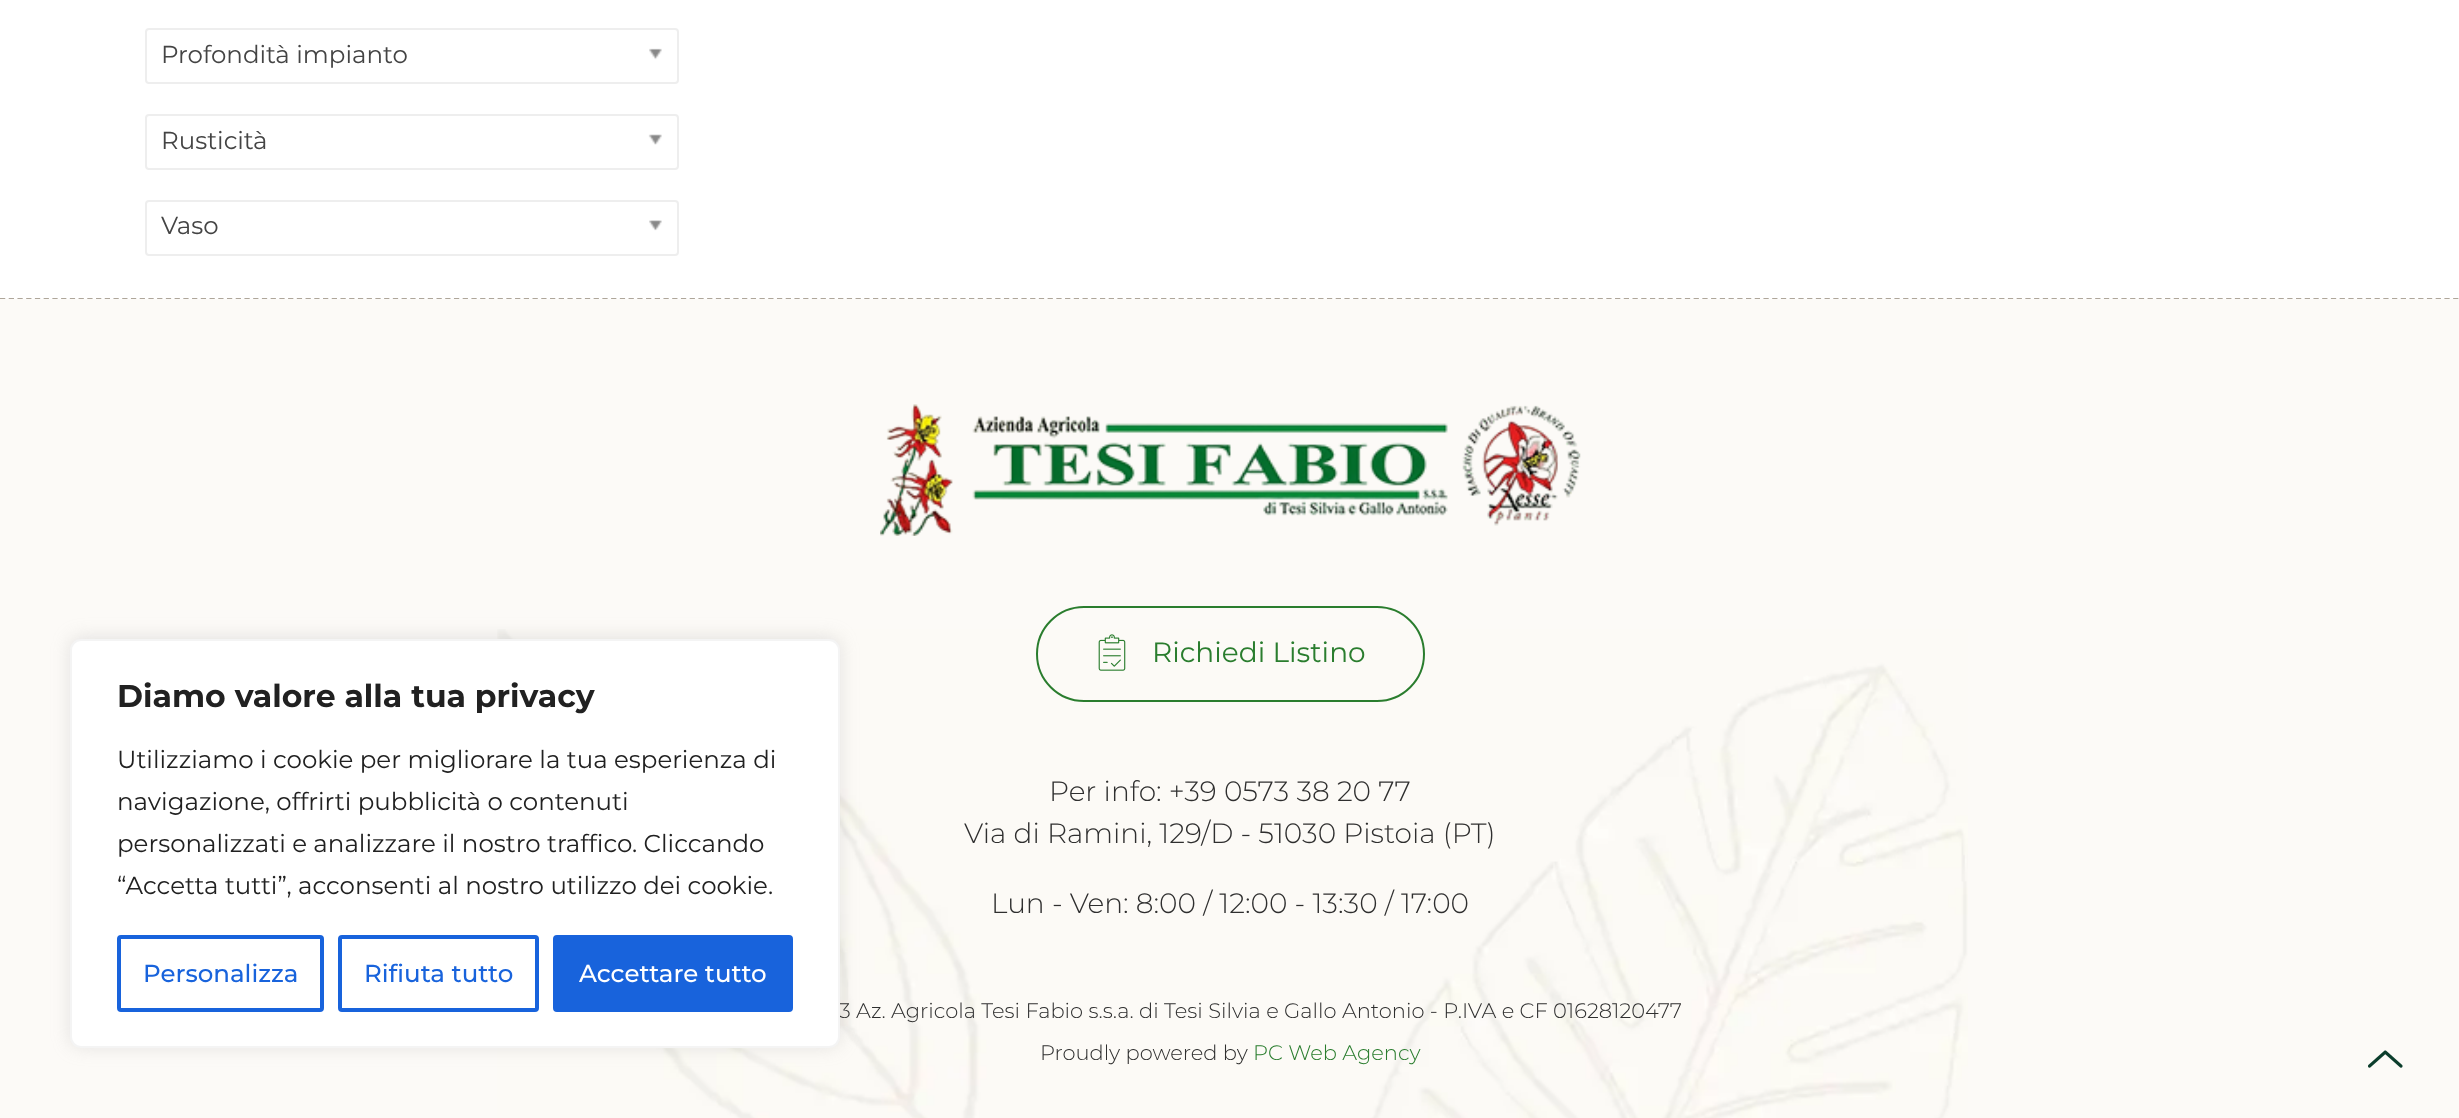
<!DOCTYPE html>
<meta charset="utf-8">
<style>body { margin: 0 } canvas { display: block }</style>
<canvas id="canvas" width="2459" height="1118"></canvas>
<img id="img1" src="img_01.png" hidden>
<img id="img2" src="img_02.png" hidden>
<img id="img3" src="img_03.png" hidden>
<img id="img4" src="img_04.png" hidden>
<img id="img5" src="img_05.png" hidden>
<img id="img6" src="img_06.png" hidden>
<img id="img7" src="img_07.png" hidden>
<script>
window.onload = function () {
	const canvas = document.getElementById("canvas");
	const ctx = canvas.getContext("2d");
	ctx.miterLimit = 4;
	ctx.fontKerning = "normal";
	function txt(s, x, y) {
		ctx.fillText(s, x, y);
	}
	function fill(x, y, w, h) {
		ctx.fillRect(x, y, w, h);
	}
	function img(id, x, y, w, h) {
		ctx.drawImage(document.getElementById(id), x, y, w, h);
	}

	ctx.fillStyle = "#FFFFFF";
	fill(0, 0, 2459, 1118);
	ctx.beginPath();
	ctx.moveTo(0, 298.5);
	ctx.lineTo(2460.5, 298.5);
	ctx.strokeStyle = "#AEA69A";
	ctx.lineWidth = 1.8;
	ctx.setLineDash([5.25, 3.48]);
	ctx.stroke();
	fill(0, 297, 2459, 1);
	ctx.beginPath();
	ctx.roundRect(146, 29, 532, 54, 3);
	ctx.strokeStyle = "#EEEEEE";
	ctx.lineWidth = 2;
	ctx.setLineDash([]);
	ctx.stroke();
	img("img1", 649, 48, 13, 12);
	ctx.beginPath();
	ctx.roundRect(146, 115, 532, 54, 3);
	ctx.stroke();
	img("img2", 648, 134, 14, 11);
	ctx.beginPath();
	ctx.roundRect(146, 201, 532, 54, 3);
	ctx.stroke();
	img("img3", 649, 220, 13, 11);
	ctx.fillStyle = "#FCFAF7";
	fill(0, 299, 2459, 819);
	img("img4", 497, 629, 1471, 489);
	img("img5", 880, 404, 701, 132);
	ctx.beginPath();
	ctx.roundRect(1037, 607, 387, 94, 47);
	ctx.strokeStyle = "#2A7D2E";
	ctx.stroke();
	img("img6", 1098, 634, 28, 37);
	ctx.fillStyle = "rgba(172, 171, 171, 0.3)";
	ctx.filter = "blur(9px)";
	ctx.beginPath();
	ctx.roundRect(70, 637, 770, 410, 11);
	ctx.fill();
	ctx.filter = "none";
	img("img7", 2368, 1050, 35, 18);
	ctx.font = "24.5px Montserrat";
	ctx.fillStyle = "#444444";
	txt("Profondità impianto", 161, 63);
	txt("Rusticità", 161, 149);
	txt("Vaso", 161, 234);
	ctx.font = "28px Montserrat";
	ctx.fillStyle = "#2A7D2E";
	txt("Richiedi Listino", 1152, 662);
	ctx.font = "300 28px Montserrat";
	ctx.fillStyle = "#2F2F2F";
	txt("Per info: +39 0573 38 20 77", 1049, 801);
	txt("Via di Ramini, 129/D - 51030 Pistoia (PT)", 964, 843);
	txt("Lun - Ven: 8:00 / 12:00 - 13:30 / 17:00", 991, 913);
	ctx.font = "300 21px Montserrat";
	txt("3 Az. Agricola Tesi Fabio s.s.a. di Tesi Silvia e Gallo Antonio - P.IVA e CF 01628120477", 839, 1018);
	txt("Proudly powered by", 1040, 1060);
	ctx.fillStyle = "#2A7D2E";
	txt("PC Web Agency", 1253, 1060);
	ctx.fillStyle = "#FFFFFF";
	ctx.beginPath();
	ctx.roundRect(71, 640, 768, 407, 10);
	ctx.fill();
	ctx.strokeStyle = "#F4F4F4";
	ctx.stroke();
	ctx.font = "bold 31.5px Montserrat";
	ctx.fillStyle = "#212121";
	txt("Diamo valore alla tua privacy", 117, 707);
	ctx.font = "24.5px Montserrat";
	txt("Utilizziamo i cookie per migliorare la tua esperienza di", 117, 768);
	txt("navigazione, offrirti pubblicità o contenuti", 117, 810);
	txt("personalizzati e analizzare il nostro traffico. Cliccando", 117, 852);
	txt("“Accetta tutti”, acconsenti al nostro utilizzo dei cookie.", 117, 894);
	ctx.beginPath();
	ctx.roundRect(119, 937, 203, 73, 2);
	ctx.strokeStyle = "#1863DC";
	ctx.lineWidth = 4;
	ctx.stroke();
	ctx.font = "500 24.5px Montserrat";
	ctx.fillStyle = "#1863DC";
	txt("Personalizza", 143, 982);
	ctx.beginPath();
	ctx.roundRect(340, 937, 197, 73, 2);
	ctx.stroke();
	txt("Rifiuta tutto", 364, 982);
	ctx.beginPath();
	ctx.roundRect(555, 937, 236, 73, 2);
	ctx.fill();
	ctx.stroke();
	ctx.fillStyle = "#FFFFFF";
	txt("Accettare tutto", 579, 982);
};
</script>
